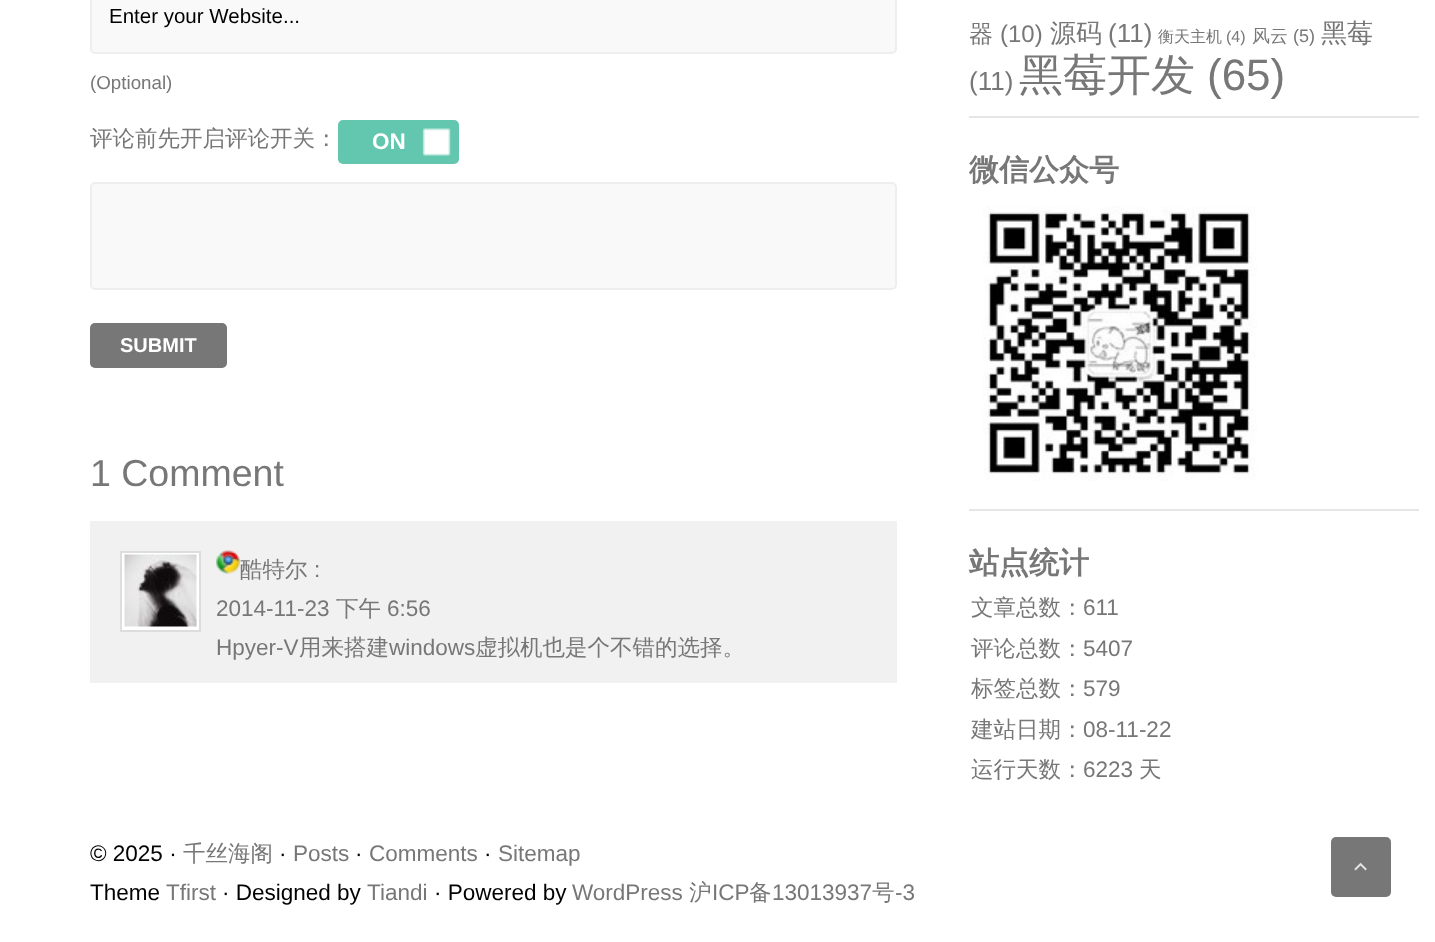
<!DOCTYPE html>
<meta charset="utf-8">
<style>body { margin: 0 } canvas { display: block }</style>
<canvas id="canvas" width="1435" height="942"></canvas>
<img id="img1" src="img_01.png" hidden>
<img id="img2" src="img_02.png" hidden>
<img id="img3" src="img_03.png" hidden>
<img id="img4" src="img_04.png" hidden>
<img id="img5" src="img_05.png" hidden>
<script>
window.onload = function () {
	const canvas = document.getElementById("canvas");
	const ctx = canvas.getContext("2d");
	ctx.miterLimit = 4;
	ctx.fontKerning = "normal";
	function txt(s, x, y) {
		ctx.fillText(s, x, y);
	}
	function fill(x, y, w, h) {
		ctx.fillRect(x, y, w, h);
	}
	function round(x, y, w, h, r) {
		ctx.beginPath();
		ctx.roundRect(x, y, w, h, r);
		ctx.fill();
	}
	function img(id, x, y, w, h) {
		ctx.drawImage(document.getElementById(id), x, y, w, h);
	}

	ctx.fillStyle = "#FFFFFF";
	fill(0, 0, 1435, 942);
	ctx.fillStyle = "#F9F9F9";
	ctx.beginPath();
	ctx.roundRect(91, -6, 805, 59, 4);
	ctx.fill();
	ctx.strokeStyle = "#EEEEEE";
	ctx.lineWidth = 2;
	ctx.stroke();
	ctx.fillStyle = "#63C6AE";
	round(338, 120, 121, 44, 5);
	img("img1", 422, 128, 29, 28);
	ctx.fillStyle = "#F9F9F9";
	ctx.beginPath();
	ctx.roundRect(91, 183, 805, 106, 4);
	ctx.fill();
	ctx.stroke();
	ctx.fillStyle = "#777777";
	round(90, 323, 137, 45, 5);
	ctx.fillStyle = "#F1F1F1";
	fill(90, 521, 807, 162);
	ctx.fillStyle = "#FFFFFF";
	ctx.beginPath();
	ctx.rect(121, 552, 79, 79);
	ctx.fill();
	ctx.strokeStyle = "#DDDDDD";
	ctx.stroke();
	img("img2", 124, 554, 73, 73);
	img("img3", 216, 550, 24, 24);
	ctx.fillStyle = "#E6E6E6";
	fill(969, 116, 450, 2);
	img("img4", 983, 206, 274, 275);
	fill(969, 509, 450, 2);
	ctx.fillStyle = "#777777";
	round(1331, 837, 60, 60, 5);
	img("img5", 1354, 862, 13, 9);
	ctx.font = "20.5px Liberation Sans";
	ctx.fillStyle = "#000000";
	txt("Enter your Website...", 109, 23);
	ctx.font = "18.75px Liberation Sans";
	ctx.fillStyle = "#777777";
	txt("(Optional)", 90, 89);
	ctx.font = "500 22.5px WenQuanYi Zen Hei";
	txt("评论前先开启评论开关：", 90, 146);
	ctx.font = "bold 22.5px Liberation Sans";
	ctx.fillStyle = "#FFFFFF";
	txt("ON", 372, 149);
	ctx.font = "bold 20px Liberation Sans";
	txt("SUBMIT", 120, 352);
	ctx.font = "37.5px Liberation Sans";
	ctx.fillStyle = "#777777";
	txt("1 Comment", 90, 486);
	ctx.font = "500 22.5px WenQuanYi Zen Hei";
	txt("酷特尔", 240, 577);
	ctx.font = "22.5px Liberation Sans";
	txt(":", 314, 577);
	txt("2014-11-23", 216, 616);
	ctx.font = "500 22.5px WenQuanYi Zen Hei";
	txt("下午", 336, 616);
	ctx.font = "22.5px Liberation Sans";
	txt("6:56", 387, 616);
	txt("Hpyer-V", 216, 655);
	ctx.font = "500 22.5px WenQuanYi Zen Hei";
	txt("用来搭建", 299, 655);
	ctx.font = "22.5px Liberation Sans";
	txt("windows", 389, 655);
	ctx.font = "500 22.5px WenQuanYi Zen Hei";
	txt("虚拟机也是个不错的选择。", 475, 655);
	ctx.font = "500 24px WenQuanYi Zen Hei";
	txt("器", 969, 42);
	ctx.font = "24px Liberation Sans";
	txt("(10)", 1000, 42);
	ctx.font = "500 26px WenQuanYi Zen Hei";
	txt("源码", 1050, 42);
	ctx.font = "26px Liberation Sans";
	txt("(11)", 1108, 42);
	ctx.font = "500 16px WenQuanYi Zen Hei";
	txt("衡天主机", 1158, 42);
	ctx.font = "16px Liberation Sans";
	txt("(4)", 1226, 42);
	ctx.font = "500 18px WenQuanYi Zen Hei";
	txt("风云", 1252, 42);
	ctx.font = "18px Liberation Sans";
	txt("(5)", 1293, 42);
	ctx.font = "500 26px WenQuanYi Zen Hei";
	txt("黑莓", 1321, 42);
	ctx.font = "26px Liberation Sans";
	txt("(11)", 969, 90);
	ctx.font = "500 44px WenQuanYi Zen Hei";
	txt("黑莓开发", 1019, 90);
	ctx.font = "44px Liberation Sans";
	txt("(65)", 1207, 90);
	ctx.font = "bold 30px WenQuanYi Zen Hei";
	txt("微信公众号", 969, 180);
	txt("站点统计", 969, 573);
	ctx.font = "500 22.5px WenQuanYi Zen Hei";
	txt("文章总数：", 971, 615);
	ctx.font = "22.5px Liberation Sans";
	txt("611", 1083, 615);
	ctx.font = "500 22.5px WenQuanYi Zen Hei";
	txt("评论总数：", 971, 656);
	ctx.font = "22.5px Liberation Sans";
	txt("5407", 1083, 656);
	ctx.font = "500 22.5px WenQuanYi Zen Hei";
	txt("标签总数：", 971, 696);
	ctx.font = "22.5px Liberation Sans";
	txt("579", 1083, 696);
	ctx.font = "500 22.5px WenQuanYi Zen Hei";
	txt("建站日期：", 971, 737);
	ctx.font = "22.5px Liberation Sans";
	txt("08-11-22", 1083, 737);
	ctx.font = "500 22.5px WenQuanYi Zen Hei";
	txt("运行天数：", 971, 777);
	ctx.font = "22.5px Liberation Sans";
	txt("6223", 1083, 777);
	ctx.font = "500 22.5px WenQuanYi Zen Hei";
	txt("天", 1139, 777);
	ctx.font = "22.5px Liberation Sans";
	ctx.fillStyle = "#000000";
	txt("© 2025 ·", 90, 861);
	ctx.font = "500 22.5px WenQuanYi Zen Hei";
	ctx.fillStyle = "#777777";
	txt("千丝海阁", 183, 861);
	ctx.font = "22.5px Liberation Sans";
	ctx.fillStyle = "#000000";
	txt("·", 279, 861);
	ctx.fillStyle = "#777777";
	txt("Posts", 293, 861);
	ctx.fillStyle = "#000000";
	txt("·", 355, 861);
	ctx.fillStyle = "#777777";
	txt("Comments", 369, 861);
	ctx.fillStyle = "#000000";
	txt("·", 484, 861);
	ctx.fillStyle = "#777777";
	txt("Sitemap", 498, 861);
	ctx.fillStyle = "#000000";
	txt("Theme", 90, 900);
	ctx.fillStyle = "#777777";
	txt("Tfirst", 166, 900);
	ctx.fillStyle = "#000000";
	txt("· Designed by", 222, 900);
	ctx.fillStyle = "#777777";
	txt("Tiandi", 367, 900);
	ctx.fillStyle = "#000000";
	txt("· Powered by", 434, 900);
	ctx.fillStyle = "#777777";
	txt("WordPress", 572, 900);
	ctx.font = "500 22.5px WenQuanYi Zen Hei";
	txt("沪", 689, 900);
	ctx.font = "22.5px Liberation Sans";
	txt("ICP", 712, 900);
	ctx.font = "500 22.5px WenQuanYi Zen Hei";
	txt("备", 749, 900);
	ctx.font = "22.5px Liberation Sans";
	txt("13013937", 772, 900);
	ctx.font = "500 22.5px WenQuanYi Zen Hei";
	txt("号", 872, 900);
	ctx.font = "22.5px Liberation Sans";
	txt("-3", 895, 900);
};
</script>
